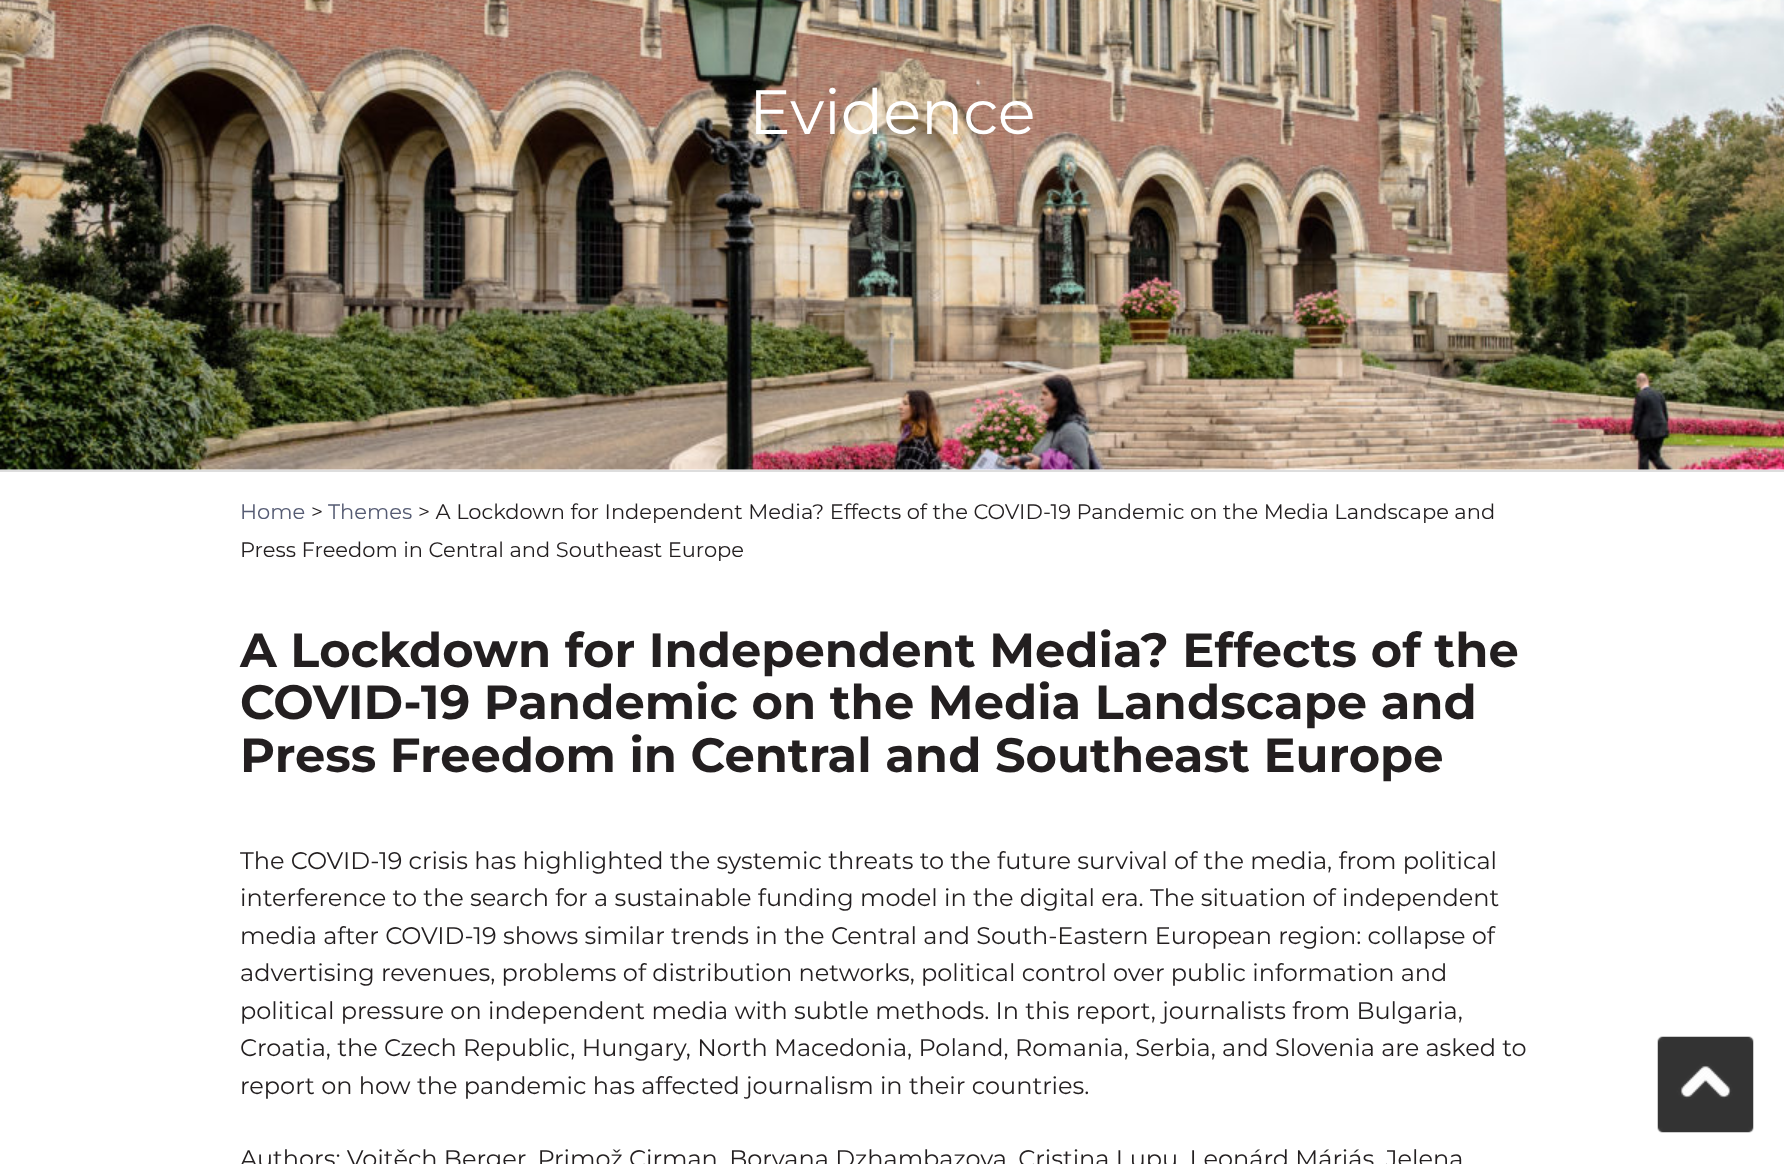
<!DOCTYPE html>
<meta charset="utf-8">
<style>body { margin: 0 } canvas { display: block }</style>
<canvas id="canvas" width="1784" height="1164"></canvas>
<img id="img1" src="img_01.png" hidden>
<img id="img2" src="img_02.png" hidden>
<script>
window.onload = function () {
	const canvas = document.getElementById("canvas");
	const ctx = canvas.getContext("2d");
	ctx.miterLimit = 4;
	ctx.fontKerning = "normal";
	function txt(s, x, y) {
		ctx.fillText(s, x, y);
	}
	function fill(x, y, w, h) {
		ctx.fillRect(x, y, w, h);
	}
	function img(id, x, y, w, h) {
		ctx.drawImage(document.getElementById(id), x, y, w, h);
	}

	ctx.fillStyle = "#FFFFFF";
	fill(0, 0, 1784, 1164);
	img("img1", 0, 0, 1784, 470);
	ctx.fillStyle = "#DDDDDD";
	fill(0, 470, 1784, 2);
	img("img2", 1657, 1036, 97, 97);
	ctx.font = "62.5px Montserrat";
	ctx.fillStyle = "#FFFFFF";
	txt("Evidence", 749, 134);
	ctx.font = "21px Montserrat";
	ctx.fillStyle = "#555B73";
	txt("Home", 240, 519);
	ctx.fillStyle = "#231F20";
	txt(">", 311, 519);
	ctx.fillStyle = "#555B73";
	txt("Themes", 328, 519);
	ctx.fillStyle = "#231F20";
	txt("> A Lockdown for Independent Media? Effects of the COVID-19 Pandemic on the Media Landscape and", 418, 519);
	txt("Press Freedom in Central and Southeast Europe", 240, 557);
	ctx.font = "bold 48px Montserrat";
	txt("A Lockdown for Independent Media? Effects of the", 240, 667);
	txt("COVID-19 Pandemic on the Media Landscape and", 240, 719);
	txt("Press Freedom in Central and Southeast Europe", 240, 772);
	ctx.font = "24px Montserrat";
	txt("The COVID-19 crisis has highlighted the systemic threats to the future survival of the media, from political", 240, 869);
	txt("interference to the search for a sustainable funding model in the digital era. The situation of independent", 240, 906);
	txt("media after COVID-19 shows similar trends in the Central and South-Eastern European region: collapse of", 240, 944);
	txt("advertising revenues, problems of distribution networks, political control over public information and", 240, 981);
	txt("political pressure on independent media with subtle methods. In this report, journalists from Bulgaria,", 240, 1019);
	txt("Croatia, the Czech Republic, Hungary, North Macedonia, Poland, Romania, Serbia, and Slovenia are asked to", 240, 1056);
	txt("report on how the pandemic has affected journalism in their countries.", 240, 1094);
	txt("Authors: Vojtěch Berger, Primož Cirman, Boryana Dzhambazova, Cristina Lupu, Leonárd Máriás, Jelena", 240, 1167);
};
</script>
